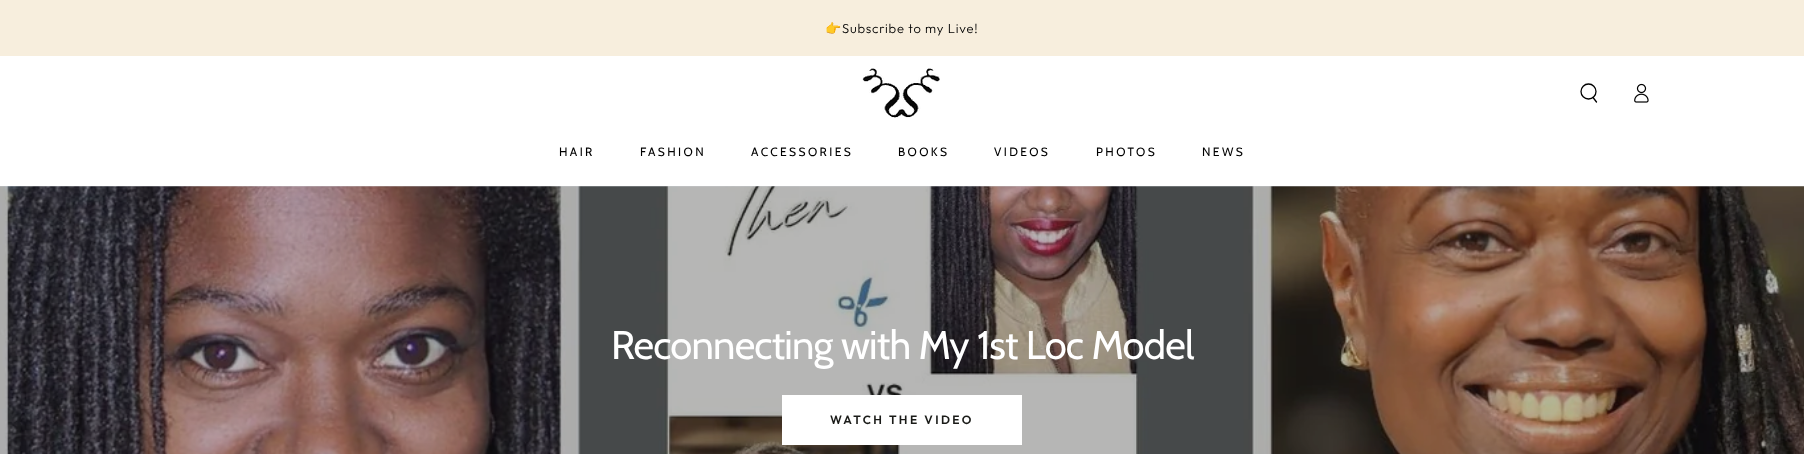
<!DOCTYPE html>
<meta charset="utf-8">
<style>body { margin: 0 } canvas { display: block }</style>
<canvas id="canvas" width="1804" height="454"></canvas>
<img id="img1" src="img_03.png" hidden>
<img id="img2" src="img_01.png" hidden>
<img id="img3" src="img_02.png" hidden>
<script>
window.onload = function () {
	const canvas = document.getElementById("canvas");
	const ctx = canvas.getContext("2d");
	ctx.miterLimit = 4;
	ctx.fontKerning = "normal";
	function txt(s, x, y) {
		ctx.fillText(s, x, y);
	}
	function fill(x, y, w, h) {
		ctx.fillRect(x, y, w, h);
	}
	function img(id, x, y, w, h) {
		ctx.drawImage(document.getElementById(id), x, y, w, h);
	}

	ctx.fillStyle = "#FFFFFF";
	fill(0, 0, 1804, 454);
	ctx.fillStyle = "#F7EEDD";
	fill(0, 0, 1804, 56);
	img("img1", 0, 186, 1804, 268);
	ctx.fillStyle = "rgba(210, 213, 217, 0.3)";
	fill(0, 186, 1804, 1);
	img("img2", 862, 68, 78, 50);
	ctx.beginPath();
	ctx.arc(1588.5, 91.5, 7.5, 0, Math.PI * 2);
	ctx.strokeStyle = "#000000";
	ctx.lineWidth = 1.3;
	ctx.stroke();
	ctx.beginPath();
	ctx.moveTo(1593, 97.5);
	ctx.lineTo(1596.5, 102);
	ctx.lineCap = "round";
	ctx.stroke();
	img("img3", 1634, 83, 15, 20);
	ctx.fillStyle = "#FFFFFF";
	fill(782, 395, 240, 50);
	ctx.letterSpacing = "0.75px";
	ctx.font = "13px Noto Color Emoji";
	ctx.fillStyle = "#000000";
	txt("👉", 825, 33);
	ctx.font = "300 13px Outfit";
	txt("Subscribe to my Live!", 842, 33);
	ctx.letterSpacing = "2.4px";
	ctx.font = "12px Cabin";
	txt("HAIR", 559, 156);
	txt("FASHION", 640, 156);
	txt("ACCESSORIES", 751, 156);
	txt("BOOKS", 898, 156);
	txt("VIDEOS", 994, 156);
	txt("PHOTOS", 1096, 156);
	txt("NEWS", 1202, 156);
	ctx.letterSpacing = "-0.8px";
	ctx.font = "40px Cabin";
	ctx.fillStyle = "#FFFFFF";
	txt("Reconnecting with My 1st Loc Model", 611, 359);
	ctx.letterSpacing = "2.4px";
	ctx.font = "600 12px Outfit";
	ctx.fillStyle = "#1A1B18";
	txt("WATCH THE VIDEO", 830, 424);
};
</script>
